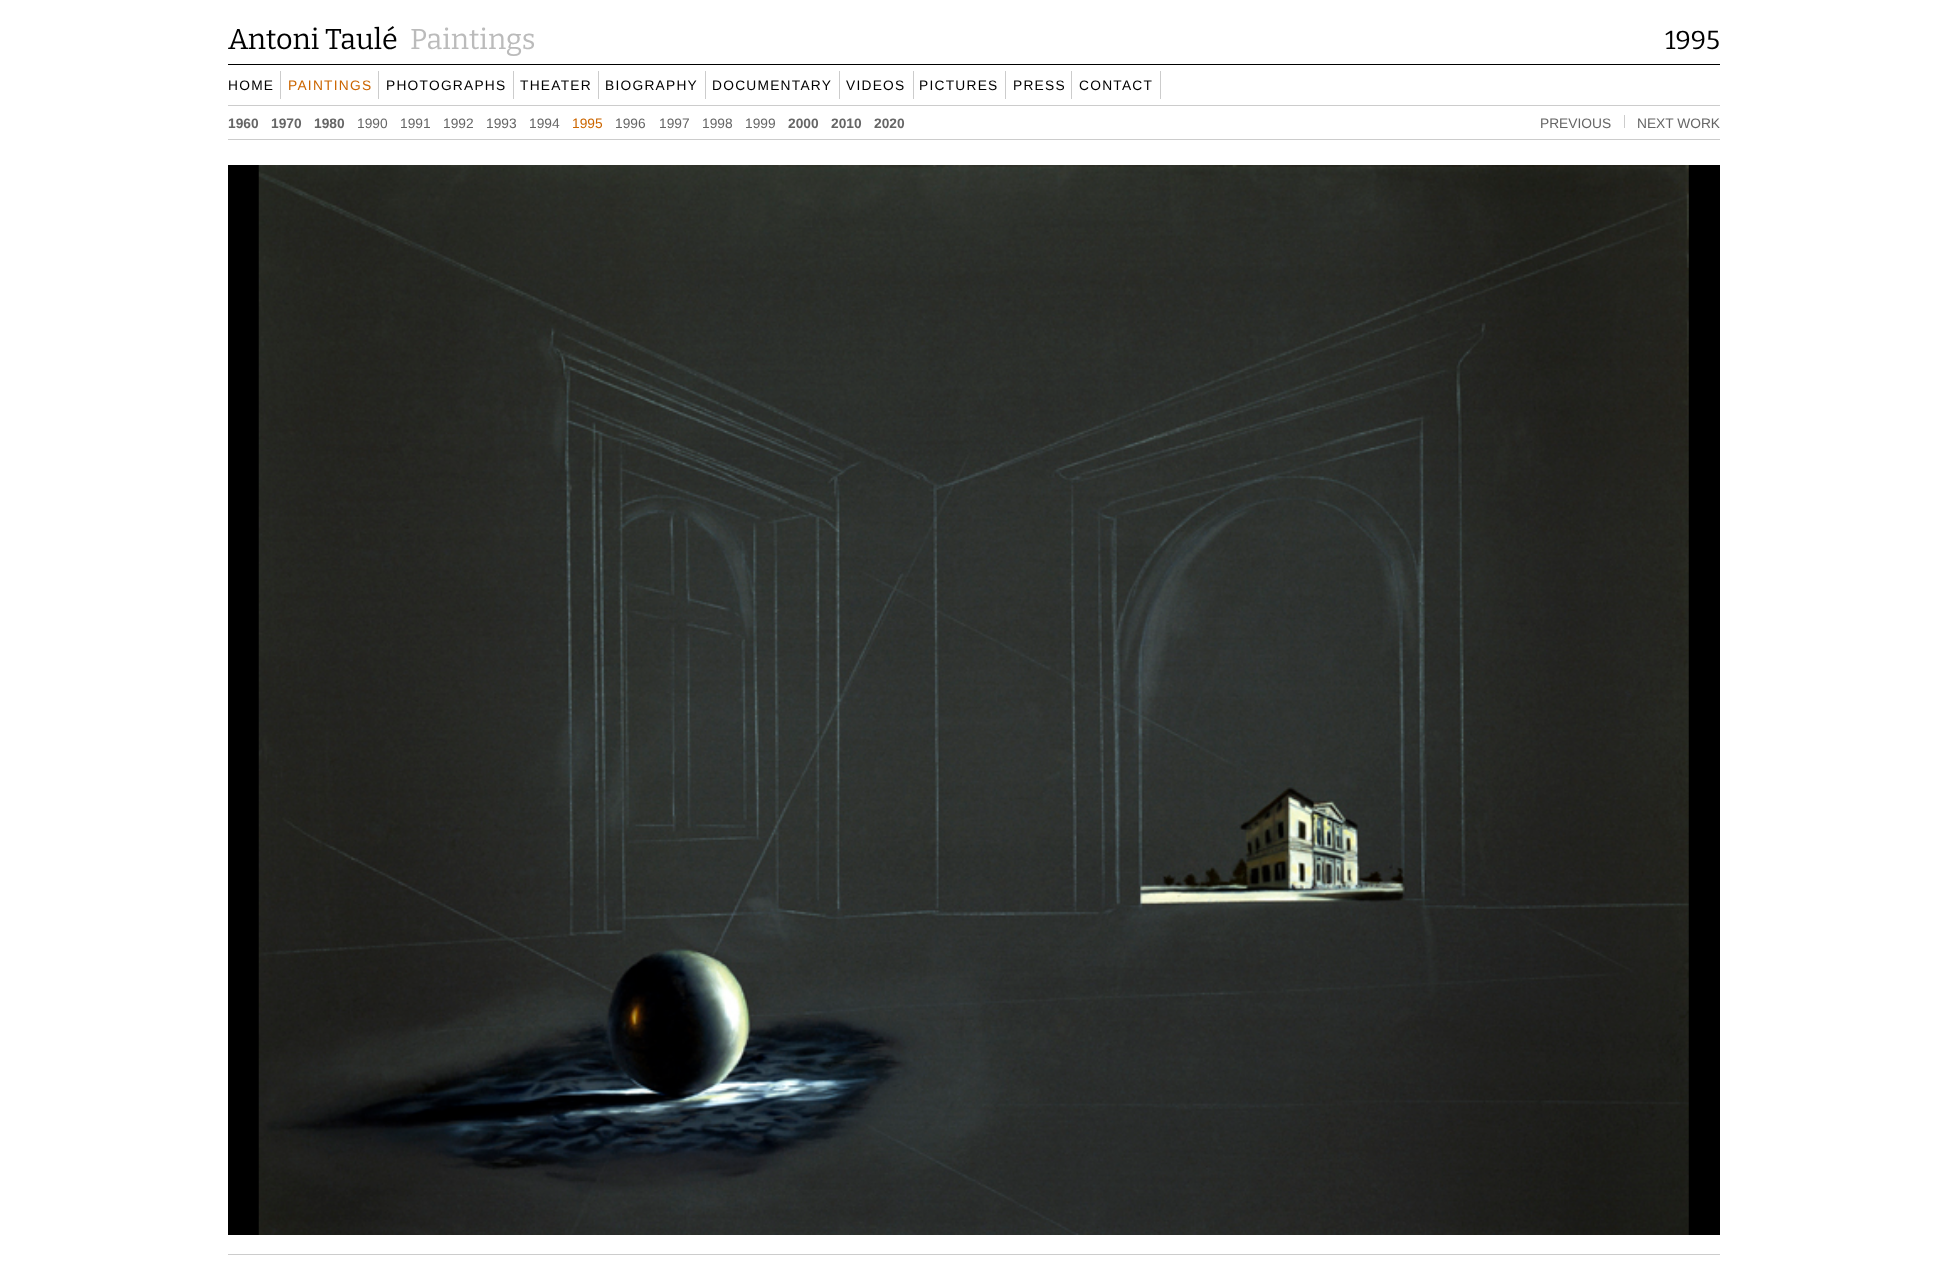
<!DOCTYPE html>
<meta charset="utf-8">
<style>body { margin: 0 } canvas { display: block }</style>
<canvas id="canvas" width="1947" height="1285"></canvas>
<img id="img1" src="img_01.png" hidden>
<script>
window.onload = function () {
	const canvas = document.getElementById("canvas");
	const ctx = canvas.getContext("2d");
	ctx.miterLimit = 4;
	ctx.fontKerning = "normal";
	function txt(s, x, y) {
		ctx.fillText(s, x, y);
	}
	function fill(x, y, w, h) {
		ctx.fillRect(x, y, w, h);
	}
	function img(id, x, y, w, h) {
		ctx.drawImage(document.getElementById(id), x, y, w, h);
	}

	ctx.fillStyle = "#FFFFFF";
	fill(0, 0, 1947, 1285);
	ctx.fillStyle = "#000000";
	fill(228, 64, 1492, 1);
	ctx.fillStyle = "#CCCCCC";
	fill(228, 105, 1492, 1);
	fill(280, 71, 1, 28);
	fill(378, 71, 1, 28);
	fill(513, 71, 1, 28);
	fill(598, 71, 1, 28);
	fill(705, 71, 1, 28);
	fill(839, 71, 1, 28);
	fill(913, 71, 1, 28);
	fill(1005, 71, 1, 28);
	fill(1071, 71, 1, 28);
	fill(1160, 71, 1, 28);
	fill(228, 139, 1492, 1);
	fill(1624, 115, 1, 13);
	ctx.fillStyle = "#000000";
	fill(228, 165, 1492, 1070);
	img("img1", 258, 165, 1431, 1070);
	ctx.fillStyle = "#CCCCCC";
	fill(228, 1254, 1492, 1);
	ctx.font = "100 28.75px Bitter";
	ctx.fillStyle = "#000000";
	txt("Antoni Taulé", 228, 49);
	ctx.fillStyle = "#BBBBBB";
	txt("Paintings", 410, 49);
	ctx.font = "100 26px Bitter";
	ctx.fillStyle = "#000000";
	txt("1995", 1665, 49);
	ctx.letterSpacing = "1.25px";
	ctx.font = "13.75px Liberation Sans";
	txt("HOME", 228, 90);
	ctx.fillStyle = "#CC6600";
	txt("PAINTINGS", 288, 90);
	ctx.fillStyle = "#000000";
	txt("PHOTOGRAPHS", 386, 90);
	txt("THEATER", 520, 90);
	txt("BIOGRAPHY", 605, 90);
	txt("DOCUMENTARY", 712, 90);
	txt("VIDEOS", 846, 90);
	txt("PICTURES", 919, 90);
	txt("PRESS", 1013, 90);
	txt("CONTACT", 1079, 90);
	ctx.letterSpacing = "0px";
	ctx.font = "bold 13.75px Liberation Sans";
	ctx.fillStyle = "#666666";
	txt("1960", 228, 128);
	txt("1970", 271, 128);
	txt("1980", 314, 128);
	ctx.font = "13.75px Liberation Sans";
	txt("1990", 357, 128);
	txt("1991", 400, 128);
	txt("1992", 443, 128);
	txt("1993", 486, 128);
	txt("1994", 529, 128);
	ctx.fillStyle = "#CC6600";
	txt("1995", 572, 128);
	ctx.fillStyle = "#666666";
	txt("1996", 615, 128);
	txt("1997", 659, 128);
	txt("1998", 702, 128);
	txt("1999", 745, 128);
	ctx.font = "bold 13.75px Liberation Sans";
	txt("2000", 788, 128);
	txt("2010", 831, 128);
	txt("2020", 874, 128);
	ctx.font = "13.75px Liberation Sans";
	txt("PREVIOUS", 1540, 128);
	txt("NEXT WORK", 1637, 128);
};
</script>
